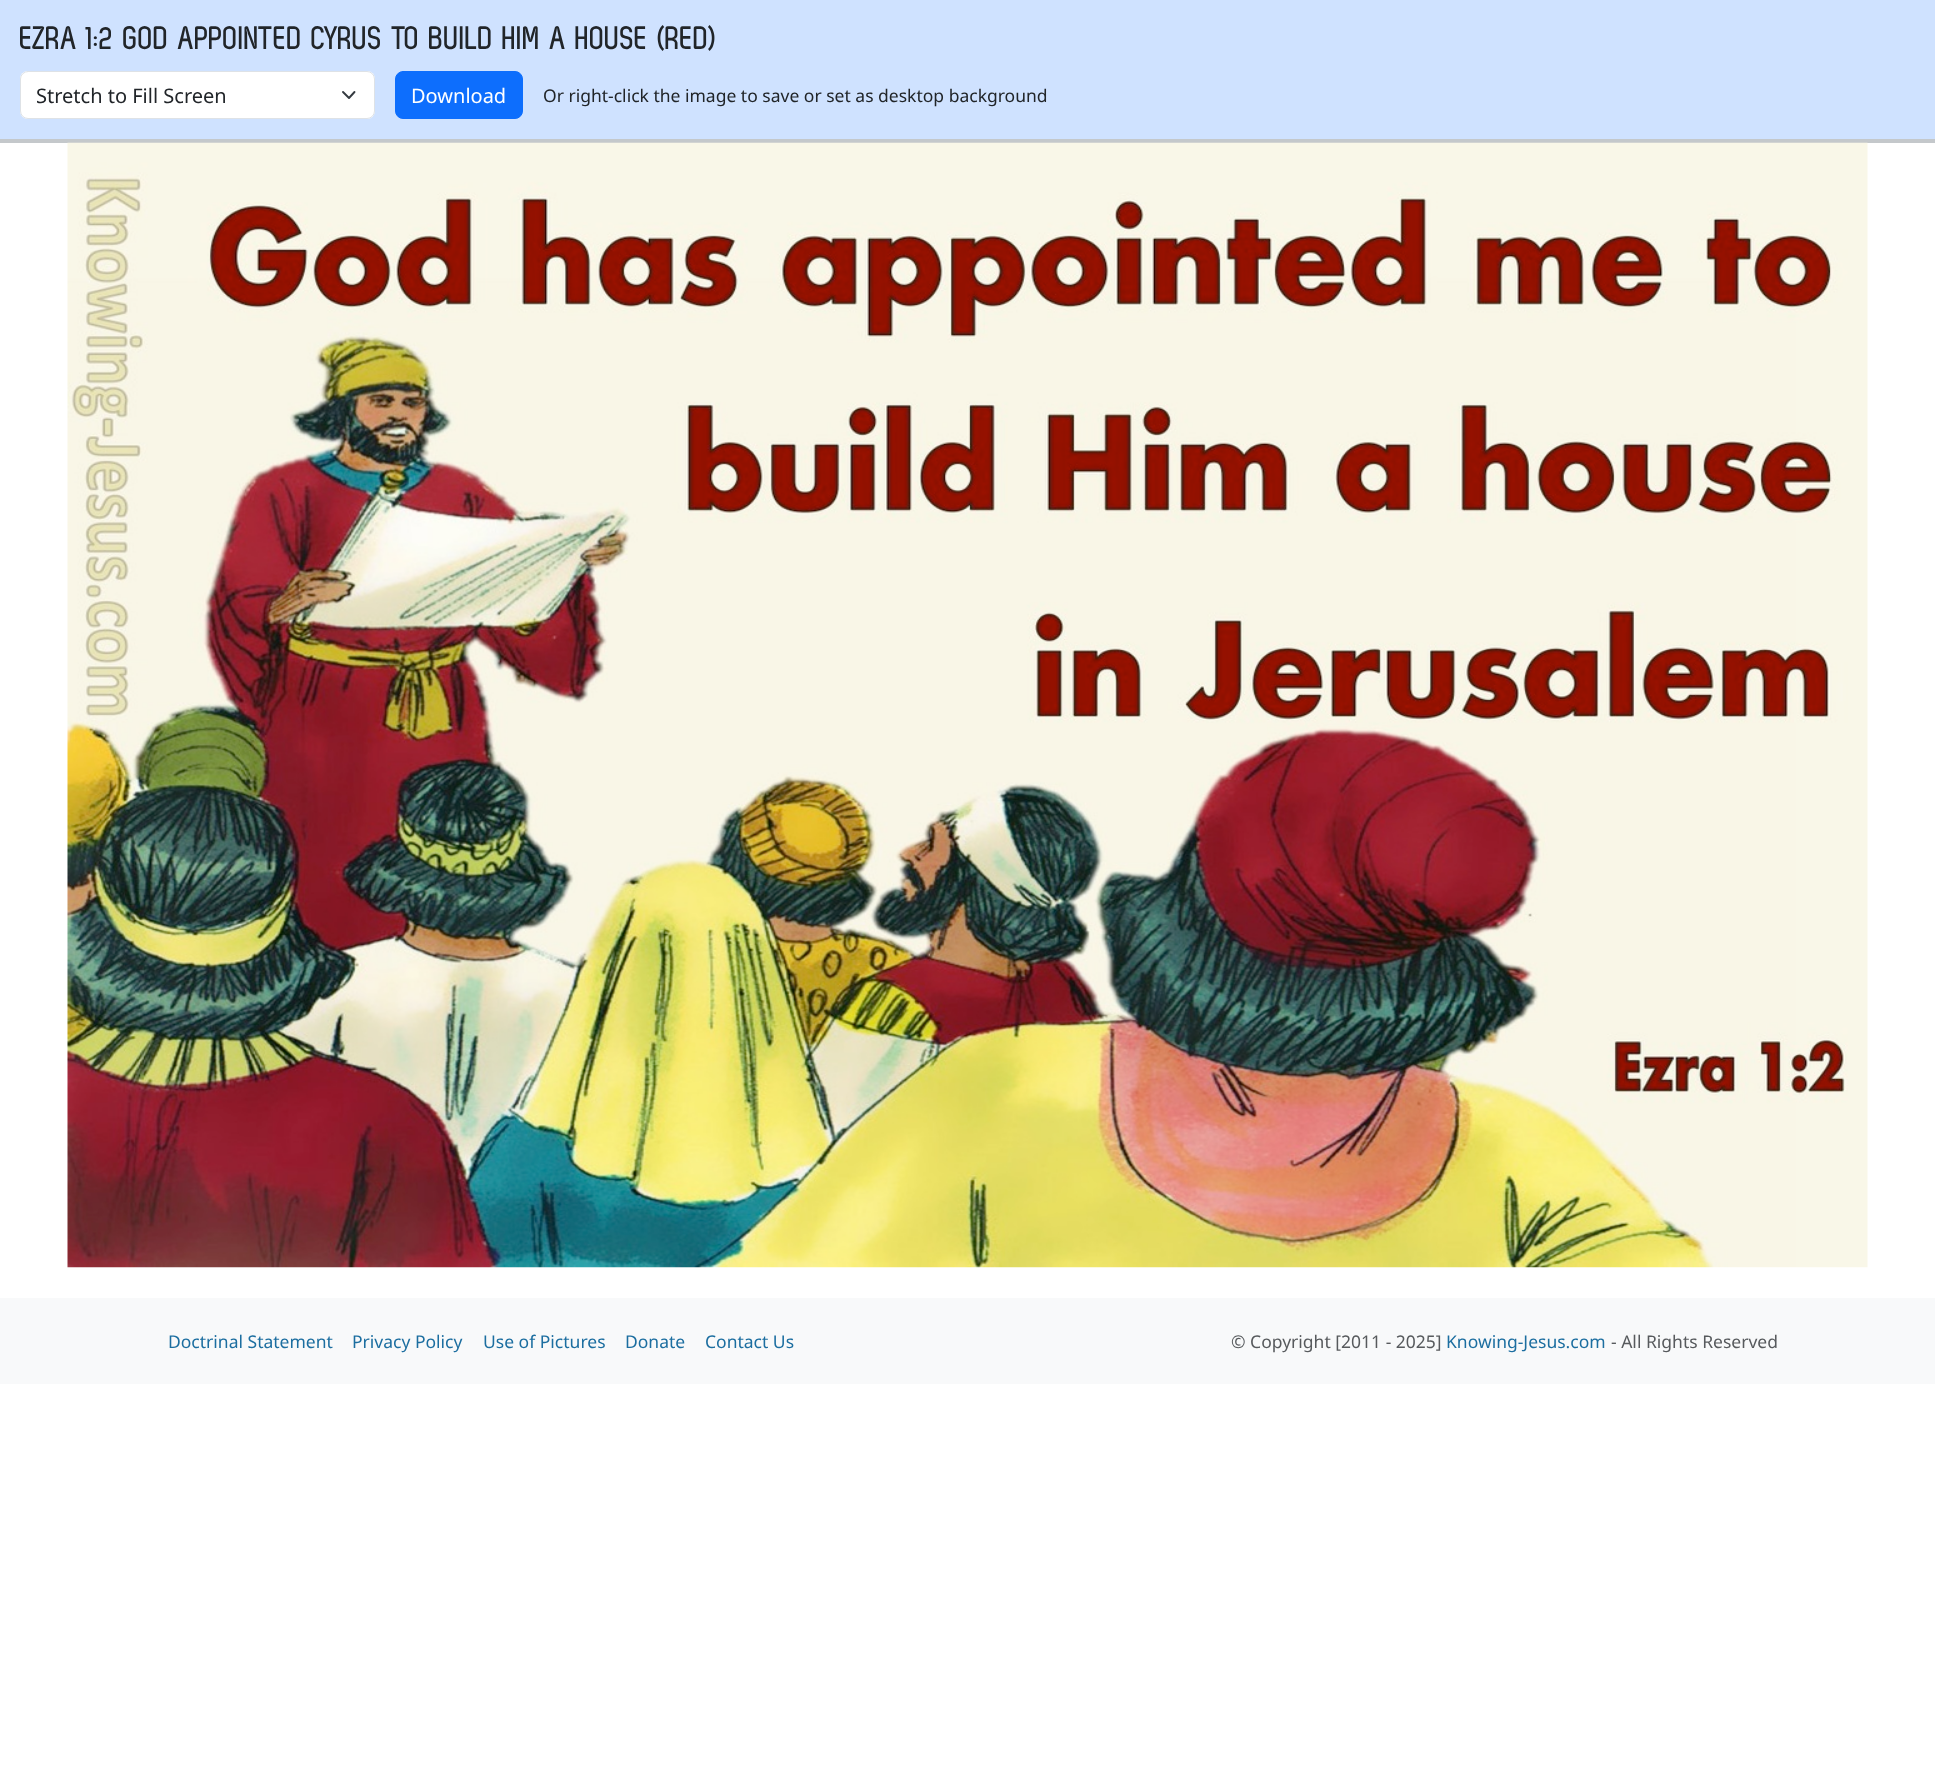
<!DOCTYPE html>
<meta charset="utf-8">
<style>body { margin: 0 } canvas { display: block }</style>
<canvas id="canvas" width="1935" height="1789"></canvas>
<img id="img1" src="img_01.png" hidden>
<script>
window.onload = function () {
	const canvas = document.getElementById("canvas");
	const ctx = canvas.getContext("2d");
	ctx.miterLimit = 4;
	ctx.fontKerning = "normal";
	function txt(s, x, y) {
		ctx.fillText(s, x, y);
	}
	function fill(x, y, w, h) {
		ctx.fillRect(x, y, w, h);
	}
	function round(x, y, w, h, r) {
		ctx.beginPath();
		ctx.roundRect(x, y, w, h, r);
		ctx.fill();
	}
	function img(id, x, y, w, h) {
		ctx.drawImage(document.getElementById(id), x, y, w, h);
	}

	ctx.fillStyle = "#FFFFFF";
	fill(0, 0, 1935, 1789);
	ctx.fillStyle = "#CFE2FF";
	fill(0, 0, 1935, 139);
	ctx.fillStyle = "#C4C8CB";
	fill(0, 139, 1935, 4);
	ctx.fillStyle = "#FFFFFF";
	round(20, 71, 355, 48, 8);
	ctx.beginPath();
	ctx.moveTo(343, 92);
	ctx.lineTo(349, 98);
	ctx.lineTo(354.5, 92);
	ctx.strokeStyle = "#343A40";
	ctx.lineWidth = 1.9;
	ctx.lineCap = "round";
	ctx.lineJoin = "round";
	ctx.stroke();
	ctx.beginPath();
	ctx.roundRect(20.5, 71.5, 354, 47, 7.5);
	ctx.strokeStyle = "#DEE2E6";
	ctx.lineWidth = 1;
	ctx.lineJoin = "miter";
	ctx.stroke();
	ctx.fillStyle = "#0D6EFD";
	ctx.beginPath();
	ctx.roundRect(395.5, 71.5, 127, 47, 7.5);
	ctx.fill();
	ctx.strokeStyle = "#0D6EFD";
	ctx.stroke();
	img("img1", 67, 142, 1801, 1126);
	ctx.fillStyle = "#F8F9FA";
	fill(0, 1298, 1935, 86);
	ctx.font = "bold 32.5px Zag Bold";
	ctx.fillStyle = "#212529";
	txt("EZRA 1:2 GOD APPOINTED CYRUS TO BUILD HIM A HOUSE (RED)", 20, 49);
	ctx.font = "20px Noto Sans";
	txt("Stretch to Fill Screen", 36, 103);
	ctx.fillStyle = "#FFFFFF";
	txt("Download", 411, 103);
	ctx.font = "17.5px Noto Sans";
	ctx.fillStyle = "#212529";
	txt("Or right-click the image to save or set as desktop background", 543, 102);
	ctx.fillStyle = "#1C6EA0";
	txt("Doctrinal Statement", 168, 1348);
	txt("Privacy Policy", 352, 1348);
	txt("Use of Pictures", 483, 1348);
	txt("Donate", 625, 1348);
	txt("Contact Us", 705, 1348);
	ctx.fillStyle = "#575A5D";
	txt("© Copyright [2011 - 2025]", 1231, 1348);
	ctx.fillStyle = "#1C6EA0";
	txt("Knowing-Jesus.com", 1446, 1348);
	ctx.fillStyle = "#575A5D";
	txt("- All Rights Reserved", 1611, 1348);
};
</script>
